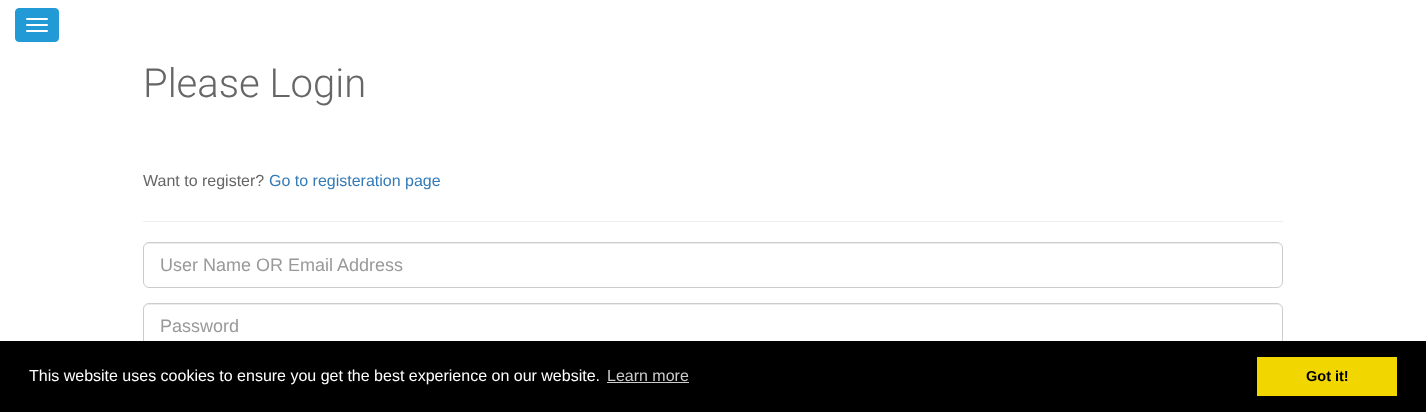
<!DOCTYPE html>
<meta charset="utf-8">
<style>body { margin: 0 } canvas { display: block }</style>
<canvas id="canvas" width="1426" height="412"></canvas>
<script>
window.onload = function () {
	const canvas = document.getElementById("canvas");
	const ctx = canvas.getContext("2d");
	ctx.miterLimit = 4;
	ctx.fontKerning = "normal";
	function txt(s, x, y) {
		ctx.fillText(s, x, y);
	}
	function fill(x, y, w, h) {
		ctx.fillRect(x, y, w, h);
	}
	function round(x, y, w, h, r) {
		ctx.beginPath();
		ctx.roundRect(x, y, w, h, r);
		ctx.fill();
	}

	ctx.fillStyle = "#FFFFFF";
	fill(0, 0, 1426, 412);
	ctx.fillStyle = "#229AD6";
	ctx.beginPath();
	ctx.roundRect(15.5, 8.5, 43, 33, 3.5);
	ctx.fill();
	ctx.strokeStyle = "#229AD6";
	ctx.stroke();
	ctx.fillStyle = "#FFFFFF";
	round(26, 18, 22, 2, 1);
	round(26, 24, 22, 2, 1);
	round(26, 30, 22, 2, 1);
	ctx.fillStyle = "#EEEEEE";
	fill(143, 221, 1140, 1);
	ctx.fillStyle = "#ECECEC";
	ctx.beginPath();
	ctx.moveTo(149, 244);
	ctx.lineTo(1277, 244);
	ctx.bezierCurveTo(1280, 244, 1282, 246, 1282, 249);
	ctx.bezierCurveTo(1282, 246, 1280, 243, 1277, 243);
	ctx.lineTo(149, 243);
	ctx.bezierCurveTo(146, 243, 144, 246, 144, 249);
	ctx.bezierCurveTo(144, 246, 146, 244, 149, 244);
	ctx.closePath();
	ctx.fill();
	ctx.beginPath();
	ctx.roundRect(143.5, 242.5, 1139, 45, 5.5);
	ctx.strokeStyle = "#CCCCCC";
	ctx.stroke();
	ctx.beginPath();
	ctx.moveTo(149, 305);
	ctx.lineTo(1277, 305);
	ctx.bezierCurveTo(1280, 305, 1282, 307, 1282, 310);
	ctx.bezierCurveTo(1282, 307, 1280, 304, 1277, 304);
	ctx.lineTo(149, 304);
	ctx.bezierCurveTo(146, 304, 144, 307, 144, 310);
	ctx.bezierCurveTo(144, 307, 146, 305, 149, 305);
	ctx.closePath();
	ctx.fill();
	ctx.beginPath();
	ctx.roundRect(143.5, 303.5, 1139, 45, 5.5);
	ctx.stroke();
	ctx.fillStyle = "#000000";
	fill(0, 341, 1426, 71);
	ctx.fillStyle = "#CCCCCC";
	fill(607, 382, 82, 1);
	ctx.fillStyle = "#F1D600";
	fill(1257, 357, 140, 39);
	ctx.font = "300 40px Roboto";
	ctx.fillStyle = "#666666";
	txt("Please Login", 143, 97);
	ctx.font = "16px Liberation Sans";
	txt("Want to register?", 143, 186);
	ctx.fillStyle = "#337AB7";
	txt("Go to registeration page", 269, 186);
	ctx.font = "18px Liberation Sans";
	ctx.fillStyle = "#999999";
	txt("User Name OR Email Address", 160, 271);
	txt("Password", 160, 332);
	ctx.font = "16px Liberation Sans";
	ctx.fillStyle = "#FFFFFF";
	txt("This website uses cookies to ensure you get the best experience on our website.", 29, 381);
	ctx.fillStyle = "#CCCCCC";
	txt("Learn more", 607, 381);
	ctx.font = "bold 14.5px Liberation Sans";
	ctx.fillStyle = "#000000";
	txt("Got it!", 1306, 381);
};
</script>
